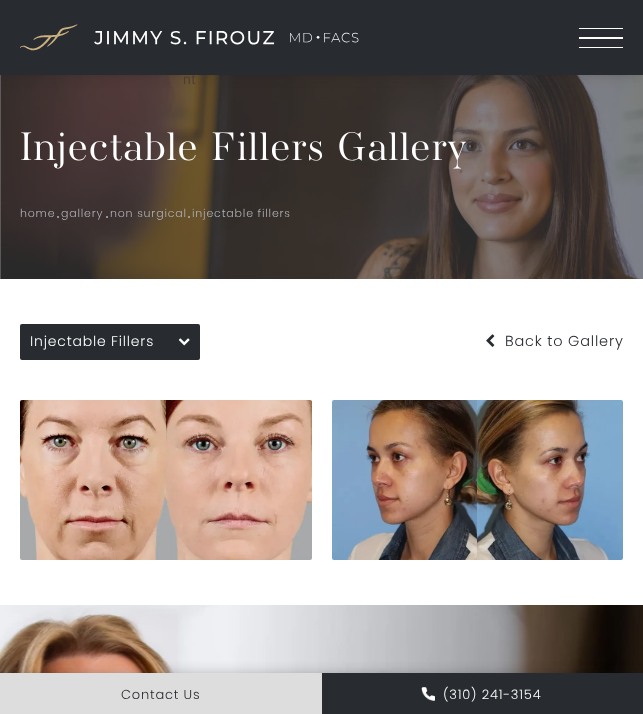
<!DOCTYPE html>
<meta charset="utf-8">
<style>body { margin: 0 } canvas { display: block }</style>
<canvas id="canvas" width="643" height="714"></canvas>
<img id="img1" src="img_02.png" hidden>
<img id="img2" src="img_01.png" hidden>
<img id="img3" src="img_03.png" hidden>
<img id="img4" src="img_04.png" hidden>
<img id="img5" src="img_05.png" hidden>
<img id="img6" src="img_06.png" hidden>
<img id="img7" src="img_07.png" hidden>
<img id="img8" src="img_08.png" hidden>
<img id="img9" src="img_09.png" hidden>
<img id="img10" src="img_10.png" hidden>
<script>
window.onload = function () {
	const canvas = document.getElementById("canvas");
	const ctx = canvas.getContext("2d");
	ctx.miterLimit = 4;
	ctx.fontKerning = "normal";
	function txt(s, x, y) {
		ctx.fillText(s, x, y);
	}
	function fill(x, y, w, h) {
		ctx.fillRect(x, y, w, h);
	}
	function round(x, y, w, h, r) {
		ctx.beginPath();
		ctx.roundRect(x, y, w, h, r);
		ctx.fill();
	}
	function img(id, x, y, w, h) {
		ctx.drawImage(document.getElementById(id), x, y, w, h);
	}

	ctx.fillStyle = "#FFFFFF";
	fill(0, 0, 643, 714);
	ctx.fillStyle = "#898989";
	fill(0, 75, 1, 204);
	img("img1", 0, 75, 643, 204);
	ctx.fillStyle = "rgba(20, 20, 20, 0.4)";
	ctx.filter = "blur(7.5px)";
	ctx.beginPath();
	ctx.rect(4, 4, 635, 67);
	ctx.fill();
	ctx.filter = "none";
	ctx.fillStyle = "#282C31";
	fill(0, 0, 643, 75);
	img("img2", 20, 24, 339, 27);
	ctx.fillStyle = "#FFFFFF";
	fill(579, 28, 44, 1);
	fill(579, 37, 44, 2);
	fill(579, 47, 44, 1);
	ctx.fillStyle = "#AFB2B6";
	ctx.beginPath();
	ctx.arc(58, 217, 1, 0, Math.PI * 2);
	ctx.fill();
	ctx.beginPath();
	ctx.arc(107, 217, 1, 0, Math.PI * 2);
	ctx.fill();
	ctx.beginPath();
	ctx.arc(189, 217, 1, 0, Math.PI * 2);
	ctx.fill();
	ctx.fillStyle = "#282C31";
	round(20, 324, 180, 36, 2);
	img("img3", 178, 338, 12, 8);
	img("img4", 486, 334, 9, 13);
	img("img5", 20, 400, 146, 160);
	img("img6", 166, 400, 146, 160);
	img("img7", 332, 400, 145, 160);
	img("img8", 477, 400, 146, 160);
	img("img9", 0, 605, 643, 68);
	ctx.fillStyle = "rgba(20, 20, 20, 0.25)";
	ctx.filter = "blur(6px)";
	ctx.beginPath();
	ctx.rect(0, 673, 643, 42);
	ctx.fill();
	ctx.filter = "none";
	ctx.fillStyle = "#DDDDDD";
	fill(0, 673, 322, 41);
	ctx.fillStyle = "#282C31";
	fill(322, 673, 321, 41);
	img("img10", 421, 687, 14, 14);
	ctx.letterSpacing = "0.8px";
	ctx.font = "14px Liberation Sans";
	ctx.fillStyle = "#4F3B35";
	txt("nt", 183, 84);
	ctx.font = "300 40.75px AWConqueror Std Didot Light";
	ctx.fillStyle = "#FFFFFF";
	txt("Injectable Fillers Gallery", 20, 160);
	ctx.font = "300 11px Poppins";
	ctx.fillStyle = "#AFB2B6";
	txt("home", 20, 217);
	txt("gallery", 61, 217);
	txt("non surgical", 110, 217);
	txt("injectable fillers", 192, 217);
	ctx.font = "300 14px Poppins";
	ctx.fillStyle = "#FFFFFF";
	txt("Injectable Fillers", 30, 346);
	ctx.font = "300 14.5px Poppins";
	ctx.fillStyle = "#282C31";
	txt("Back to Gallery", 505, 346);
	ctx.font = "300 13px Poppins";
	txt("Contact Us", 121, 699);
	ctx.fillStyle = "#FFFFFF";
	txt("(310) 241-3154", 443, 699);
};
</script>
